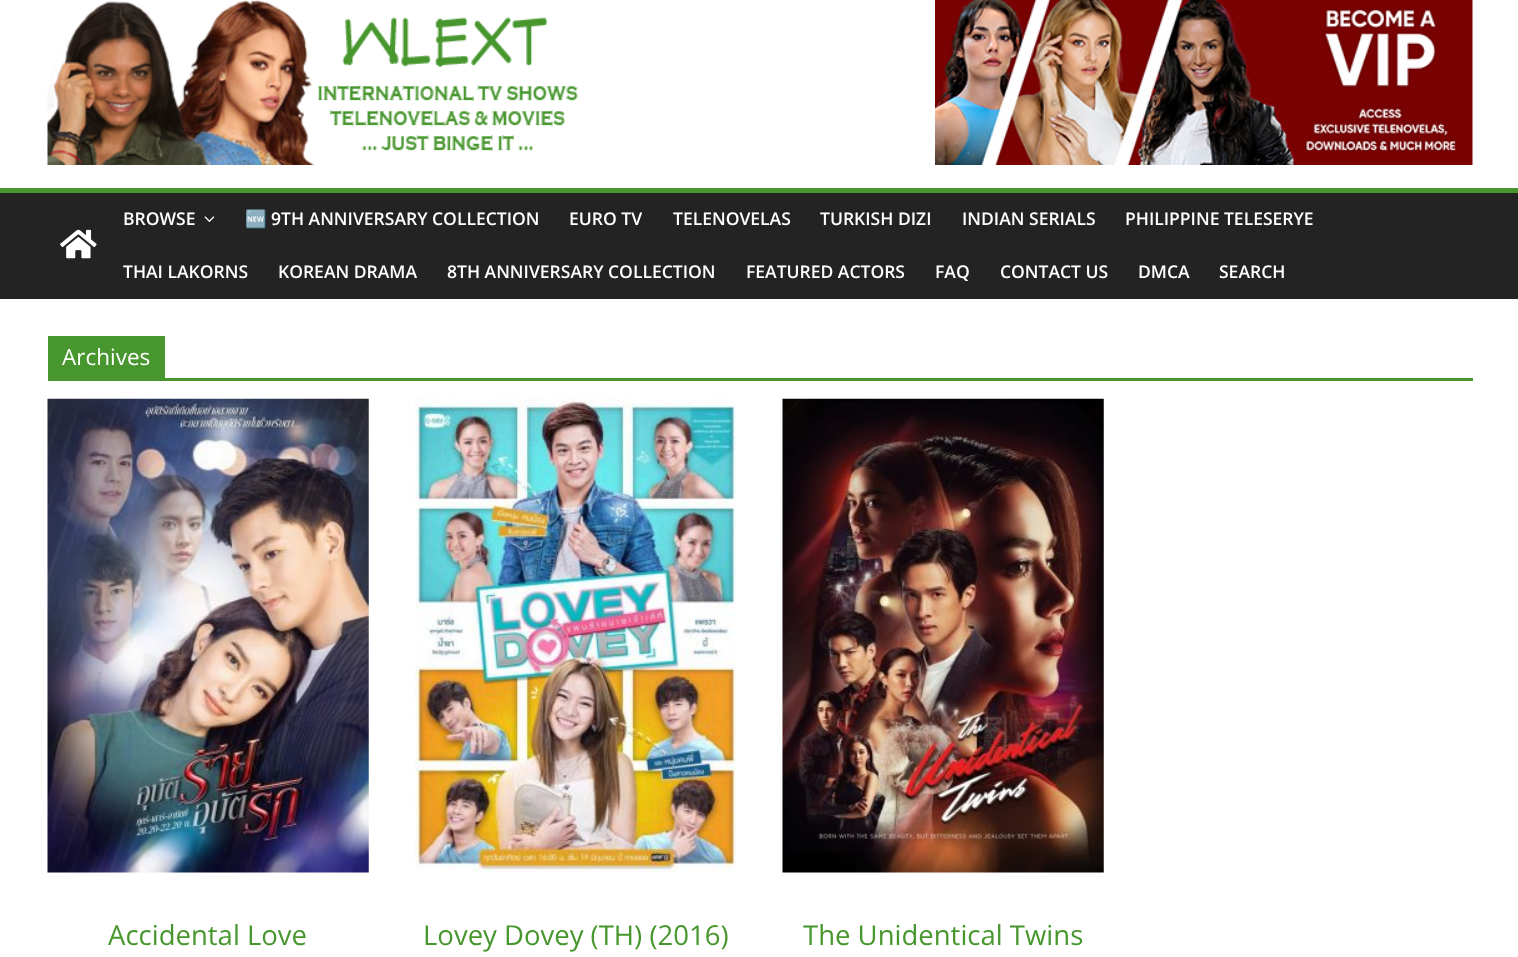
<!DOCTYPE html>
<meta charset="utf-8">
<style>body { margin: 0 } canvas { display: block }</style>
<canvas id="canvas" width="1518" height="957"></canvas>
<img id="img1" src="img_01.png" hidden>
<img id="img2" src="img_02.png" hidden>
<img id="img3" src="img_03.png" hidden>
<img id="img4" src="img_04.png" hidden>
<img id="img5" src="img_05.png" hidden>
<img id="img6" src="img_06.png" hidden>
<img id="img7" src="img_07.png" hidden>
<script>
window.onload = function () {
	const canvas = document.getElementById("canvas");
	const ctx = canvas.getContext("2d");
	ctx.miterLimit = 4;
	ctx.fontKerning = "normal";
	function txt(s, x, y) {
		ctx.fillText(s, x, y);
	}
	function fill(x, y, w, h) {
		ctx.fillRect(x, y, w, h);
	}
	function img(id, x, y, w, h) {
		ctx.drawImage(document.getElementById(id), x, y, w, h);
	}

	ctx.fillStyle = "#FFFFFF";
	fill(0, 0, 1518, 957);
	img("img1", 47, 0, 531, 165);
	img("img2", 935, 0, 538, 165);
	ctx.fillStyle = "#232323";
	fill(0, 193, 1518, 106);
	ctx.fillStyle = "#47962E";
	fill(0, 188, 1518, 5);
	img("img3", 60, 229, 37, 30);
	img("img4", 204, 216, 11, 6);
	fill(48, 378, 1425, 3);
	fill(48, 336, 117, 42);
	img("img5", 47, 398, 322, 475);
	img("img6", 415, 398, 321, 475);
	img("img7", 782, 398, 322, 475);
	ctx.font = "600 17.5px Open Sans";
	ctx.fillStyle = "#FFFFFF";
	txt("BROWSE", 123, 225);
	ctx.font = "bold 17.5px Noto Color Emoji";
	txt("🆕", 245, 225);
	ctx.font = "600 17.5px Open Sans";
	txt("9TH ANNIVERSARY COLLECTION", 271, 225);
	txt("EURO TV", 569, 225);
	txt("TELENOVELAS", 673, 225);
	txt("TURKISH DIZI", 820, 225);
	txt("INDIAN SERIALS", 962, 225);
	txt("PHILIPPINE TELESERYE", 1125, 225);
	txt("THAI LAKORNS", 123, 278);
	txt("KOREAN DRAMA", 278, 278);
	txt("8TH ANNIVERSARY COLLECTION", 447, 278);
	txt("FEATURED ACTORS", 746, 278);
	txt("FAQ", 935, 278);
	txt("CONTACT US", 1000, 278);
	txt("DMCA", 1138, 278);
	txt("SEARCH", 1219, 278);
	ctx.font = "22.5px Open Sans";
	txt("Archives", 62, 365);
	ctx.font = "27.5px Open Sans";
	ctx.fillStyle = "#47962E";
	txt("Accidental Love", 108, 945);
	txt("Lovey Dovey (TH) (2016)", 423, 945);
	txt("The Unidentical Twins", 803, 945);
};
</script>
